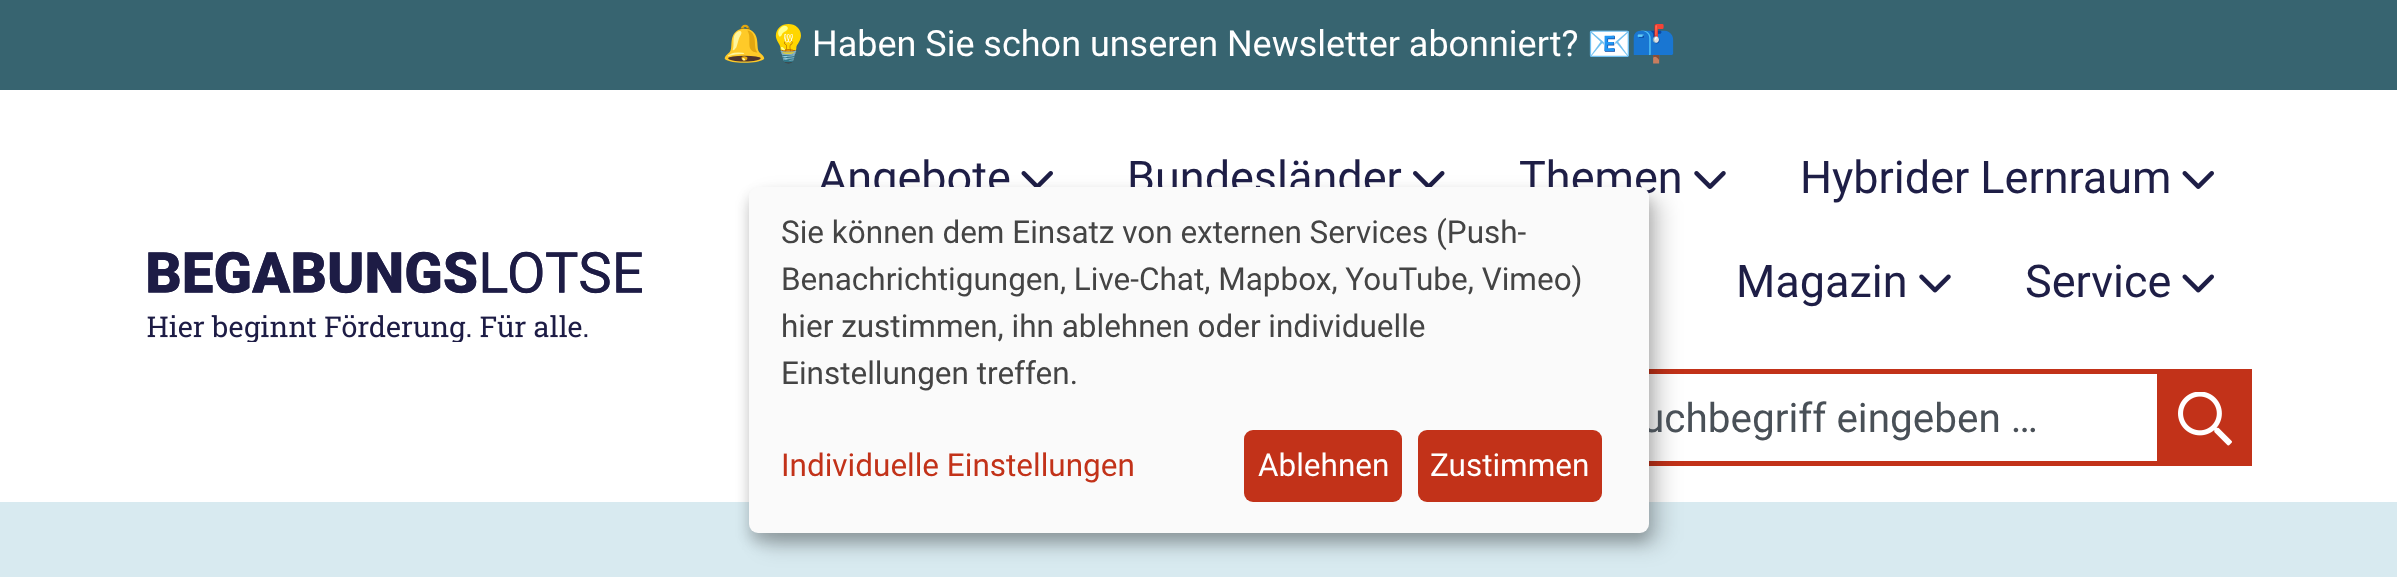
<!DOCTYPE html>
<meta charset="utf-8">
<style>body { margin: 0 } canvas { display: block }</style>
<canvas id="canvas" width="2397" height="577"></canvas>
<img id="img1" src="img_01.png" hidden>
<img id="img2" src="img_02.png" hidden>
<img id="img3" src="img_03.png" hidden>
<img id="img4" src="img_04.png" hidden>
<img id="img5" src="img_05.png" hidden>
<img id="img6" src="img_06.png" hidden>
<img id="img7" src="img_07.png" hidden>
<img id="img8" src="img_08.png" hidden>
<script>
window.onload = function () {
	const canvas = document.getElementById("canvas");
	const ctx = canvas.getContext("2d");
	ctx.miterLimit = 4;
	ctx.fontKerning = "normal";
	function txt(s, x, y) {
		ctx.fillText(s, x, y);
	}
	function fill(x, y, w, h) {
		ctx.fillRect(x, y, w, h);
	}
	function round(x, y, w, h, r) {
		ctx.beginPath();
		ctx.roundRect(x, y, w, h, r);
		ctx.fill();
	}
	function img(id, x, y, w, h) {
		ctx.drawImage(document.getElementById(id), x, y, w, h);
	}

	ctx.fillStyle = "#376470";
	fill(0, 0, 2397, 577);
	ctx.fillStyle = "#FFFFFF";
	fill(0, 90, 2397, 412);
	img("img1", 147, 251, 495, 91);
	img("img2", 1021, 171, 32, 16);
	img("img3", 1413, 171, 32, 16);
	img("img4", 1694, 171, 32, 18);
	img("img5", 2182, 171, 32, 18);
	img("img6", 1919, 274, 32, 19);
	img("img7", 2182, 274, 32, 19);
	ctx.strokeStyle = "#C23219";
	ctx.lineWidth = 5;
	ctx.strokeRect(1588.5, 371.5, 571, 92);
	ctx.fillStyle = "#C23219";
	fill(2162, 369, 90, 97);
	img("img8", 2178, 392, 54, 54);
	ctx.fillStyle = "#D8EAF0";
	fill(0, 502, 2397, 75);
	ctx.fillStyle = "rgba(0, 0, 0, 0.19)";
	ctx.filter = "blur(11px)";
	ctx.beginPath();
	ctx.roundRect(761, 198, 900, 347, 9);
	ctx.fill();
	ctx.filter = "none";
	ctx.fillStyle = "rgba(0, 0, 0, 0.2)";
	ctx.filter = "blur(7px)";
	ctx.beginPath();
	ctx.roundRect(749, 196, 900, 346, 9);
	ctx.fill();
	ctx.filter = "none";
	ctx.font = "36px Noto Color Emoji";
	ctx.fillStyle = "#FFFFFF";
	txt("🔔💡", 722, 56);
	ctx.font = "36px Roboto";
	txt("Haben Sie schon unseren Newsletter abonniert?", 812, 56);
	ctx.font = "36px Noto Color Emoji";
	txt("📧📫", 1587, 56);
	ctx.font = "45px Roboto";
	ctx.fillStyle = "#1E1E46";
	txt("Angebote", 818, 193);
	txt("Bundesländer", 1127, 193);
	txt("Themen", 1519, 193);
	txt("Hybrider Lernraum", 1800, 193);
	txt("Magazin", 1736, 297);
	txt("Service", 2025, 297);
	ctx.font = "40.5px Roboto";
	ctx.fillStyle = "#495057";
	txt("uchbegriff eingeben …", 1642, 432);
	ctx.fillStyle = "#FAFAFA";
	round(749, 187, 900, 346, 9);
	ctx.font = "31.5px Roboto";
	ctx.fillStyle = "#444444";
	txt("Sie können dem Einsatz von externen Services (Push-", 781, 243);
	txt("Benachrichtigungen, Live-Chat, Mapbox, YouTube, Vimeo)", 781, 290);
	txt("hier zustimmen, ihn ablehnen oder individuelle", 781, 337);
	txt("Einstellungen treffen.", 781, 384);
	ctx.fillStyle = "#C23219";
	txt("Individuelle Einstellungen", 781, 476);
	round(1244, 430, 158, 72, 9);
	ctx.fillStyle = "#FFFFFF";
	txt("Ablehnen", 1258, 476);
	ctx.fillStyle = "#C23219";
	round(1418, 430, 184, 72, 9);
	ctx.fillStyle = "#FFFFFF";
	txt("Zustimmen", 1430, 476);
};
</script>
